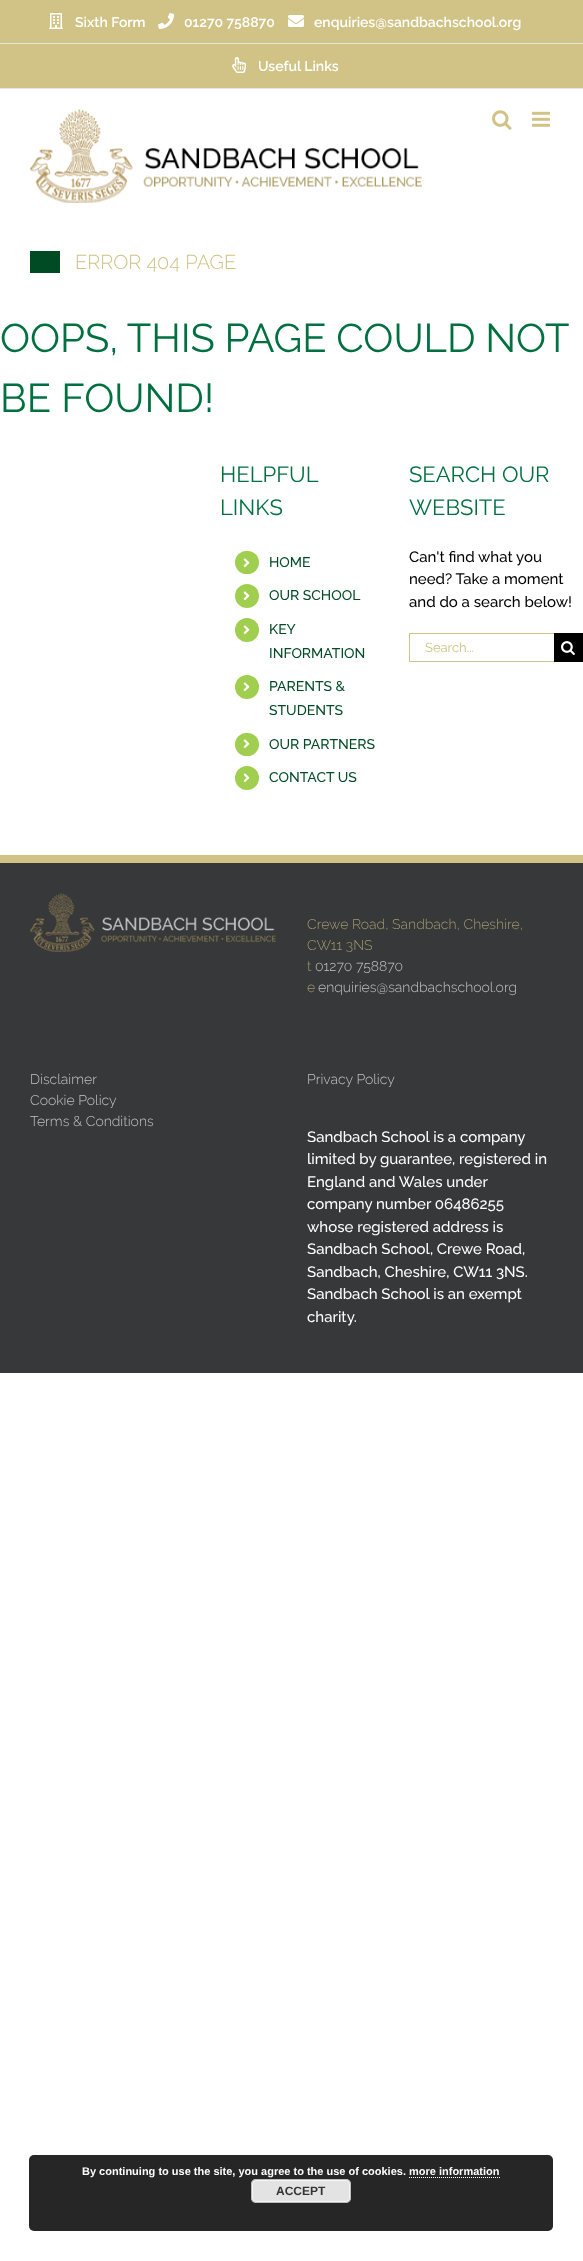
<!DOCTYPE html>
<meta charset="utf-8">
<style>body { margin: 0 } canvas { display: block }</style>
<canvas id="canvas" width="583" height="2261"></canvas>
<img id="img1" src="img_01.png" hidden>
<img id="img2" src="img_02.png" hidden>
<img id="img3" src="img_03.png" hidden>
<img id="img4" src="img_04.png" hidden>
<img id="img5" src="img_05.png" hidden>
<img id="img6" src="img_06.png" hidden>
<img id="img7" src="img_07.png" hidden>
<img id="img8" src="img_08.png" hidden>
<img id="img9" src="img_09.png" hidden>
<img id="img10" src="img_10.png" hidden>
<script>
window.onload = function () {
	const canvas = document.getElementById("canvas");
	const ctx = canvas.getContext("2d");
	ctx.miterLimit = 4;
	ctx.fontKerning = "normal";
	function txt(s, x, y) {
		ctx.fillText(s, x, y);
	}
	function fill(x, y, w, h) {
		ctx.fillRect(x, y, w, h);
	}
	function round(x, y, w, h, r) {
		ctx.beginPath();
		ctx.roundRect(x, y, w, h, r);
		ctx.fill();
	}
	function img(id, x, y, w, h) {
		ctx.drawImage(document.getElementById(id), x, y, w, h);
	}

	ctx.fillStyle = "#FFFFFF";
	fill(0, 0, 583, 2261);
	ctx.fillStyle = "#D1C386";
	fill(0, 0, 583, 88);
	ctx.fillStyle = "#E5E5E5";
	fill(0, 88, 583, 1);
	img("img1", 49, 13, 14, 16);
	img("img2", 158, 13, 16, 16);
	img("img3", 288, 15, 16, 12);
	fill(0, 43, 583, 1);
	img("img4", 232, 57, 14, 16);
	img("img5", 30, 109, 392, 94);
	img("img6", 492, 110, 20, 20);
	img("img7", 532, 111, 18, 16);
	ctx.fillStyle = "#004B24";
	fill(30, 251, 30, 22);
	ctx.fillStyle = "#A0CE4E";
	round(235, 551, 24, 23, 11.5);
	img("img8", 243, 558, 7, 10);
	ctx.beginPath();
	ctx.arc(247, 596, 12, 0, Math.PI * 2);
	ctx.fill();
	img("img8", 243, 591, 7, 10);
	ctx.beginPath();
	ctx.arc(247, 630, 12, 0, Math.PI * 2);
	ctx.fill();
	img("img8", 243, 625, 7, 10);
	ctx.beginPath();
	ctx.arc(247, 687, 12, 0, Math.PI * 2);
	ctx.fill();
	img("img8", 243, 682, 7, 10);
	round(235, 733, 24, 23, 11.5);
	img("img8", 243, 739, 7, 10);
	ctx.beginPath();
	ctx.arc(247, 778, 12, 0, Math.PI * 2);
	ctx.fill();
	img("img8", 243, 773, 7, 10);
	ctx.fillStyle = "#D1C386";
	fill(409, 633, 145, 1);
	fill(409, 661, 145, 1);
	fill(409, 633, 1, 29);
	ctx.fillStyle = "#000000";
	fill(554, 633, 29, 29);
	img("img9", 561, 641, 14, 14);
	ctx.fillStyle = "#363839";
	fill(0, 863, 583, 510);
	ctx.fillStyle = "#D1C386";
	fill(0, 855, 583, 8);
	img("img10", 30, 893, 246, 59);
	ctx.fillStyle = "#262626";
	round(29, 2155, 524, 76, 5);
	ctx.beginPath();
	ctx.moveTo(409, 2177.5);
	ctx.lineTo(500, 2177.5);
	ctx.strokeStyle = "#FFFFFF";
	ctx.setLineDash([1, 1]);
	ctx.stroke();
	ctx.fillStyle = "#E3E3E3";
	round(251, 2179, 100, 24, 5);
	ctx.beginPath();
	ctx.roundRect(252.5, 2180.5, 97, 21, 3.5);
	ctx.strokeStyle = "#F6F6F6";
	ctx.setLineDash([]);
	ctx.stroke();
	ctx.beginPath();
	ctx.roundRect(251.5, 2179.5, 99, 23, 4.5);
	ctx.strokeStyle = "#BBBBBB";
	ctx.stroke();
	ctx.font = "600 14px Raleway";
	ctx.fillStyle = "#FFFFFF";
	txt("Sixth Form", 75, 27);
	txt("01270 758870", 184, 27);
	txt("enquiries@sandbachschool.org", 314, 27);
	txt("Useful Links", 258, 71);
	ctx.font = "300 20px Raleway";
	ctx.fillStyle = "#D1C386";
	txt("ERROR 404 PAGE", 75, 269);
	ctx.wordSpacing = "-0.5px";
	ctx.font = "40px Raleway";
	ctx.fillStyle = "#007041";
	txt("OOPS, THIS PAGE COULD NOT", 0, 352);
	ctx.wordSpacing = "0px";
	txt("BE FOUND!", 0, 412);
	ctx.font = "22px Raleway";
	txt("HELPFUL", 220, 482);
	txt("LINKS", 220, 515);
	ctx.font = "500 14px Raleway";
	ctx.fillStyle = "#004B24";
	txt("HOME", 269, 567);
	txt("OUR SCHOOL", 269, 600);
	txt("KEY", 269, 634);
	txt("INFORMATION", 269, 658);
	txt("PARENTS &", 269, 691);
	txt("STUDENTS", 269, 715);
	txt("OUR PARTNERS", 269, 749);
	txt("CONTACT US", 269, 782);
	ctx.font = "22px Raleway";
	ctx.fillStyle = "#007041";
	txt("SEARCH OUR", 409, 482);
	txt("WEBSITE", 409, 515);
	ctx.font = "500 15px Raleway";
	ctx.fillStyle = "#000000";
	txt("Can't find what you", 409, 562);
	txt("need? Take a moment", 409, 584);
	txt("and do a search below!", 409, 607);
	ctx.font = "13px Raleway";
	ctx.fillStyle = "#D1C386";
	txt("Search...", 425, 652);
	ctx.font = "300 14px Raleway";
	ctx.fillStyle = "#A3996F";
	txt("Crewe Road, Sandbach, Cheshire,", 307, 929);
	txt("CW11 3NS", 307, 950);
	txt("t", 307, 971);
	ctx.fillStyle = "#C3C3C4";
	txt("01270 758870", 315, 971);
	ctx.fillStyle = "#A3996F";
	txt("e", 307, 992);
	ctx.fillStyle = "#C3C3C4";
	txt("enquiries@sandbachschool.org", 318, 992);
	txt("Disclaimer", 30, 1084);
	txt("Cookie Policy", 30, 1105);
	txt("Terms & Conditions", 30, 1126);
	txt("Privacy Policy", 307, 1084);
	ctx.font = "500 15px Raleway";
	ctx.fillStyle = "#FFFFFF";
	txt("Sandbach School is a company", 307, 1142);
	txt("limited by guarantee, registered in", 307, 1164);
	txt("England and Wales under", 307, 1187);
	txt("company number 06486255", 307, 1209);
	txt("whose registered address is", 307, 1232);
	txt("Sandbach School, Crewe Road,", 307, 1254);
	txt("Sandbach, Cheshire, CW11 3NS.", 307, 1277);
	txt("Sandbach School is an exempt", 307, 1299);
	txt("charity.", 307, 1322);
	ctx.font = "bold 11px Liberation Sans";
	txt("By continuing to use the site, you agree to the use of cookies. more information", 82, 2175);
	ctx.font = "bold 12px Liberation Sans";
	ctx.fillStyle = "#333333";
	txt("ACCEPT", 276, 2195);
};
</script>
